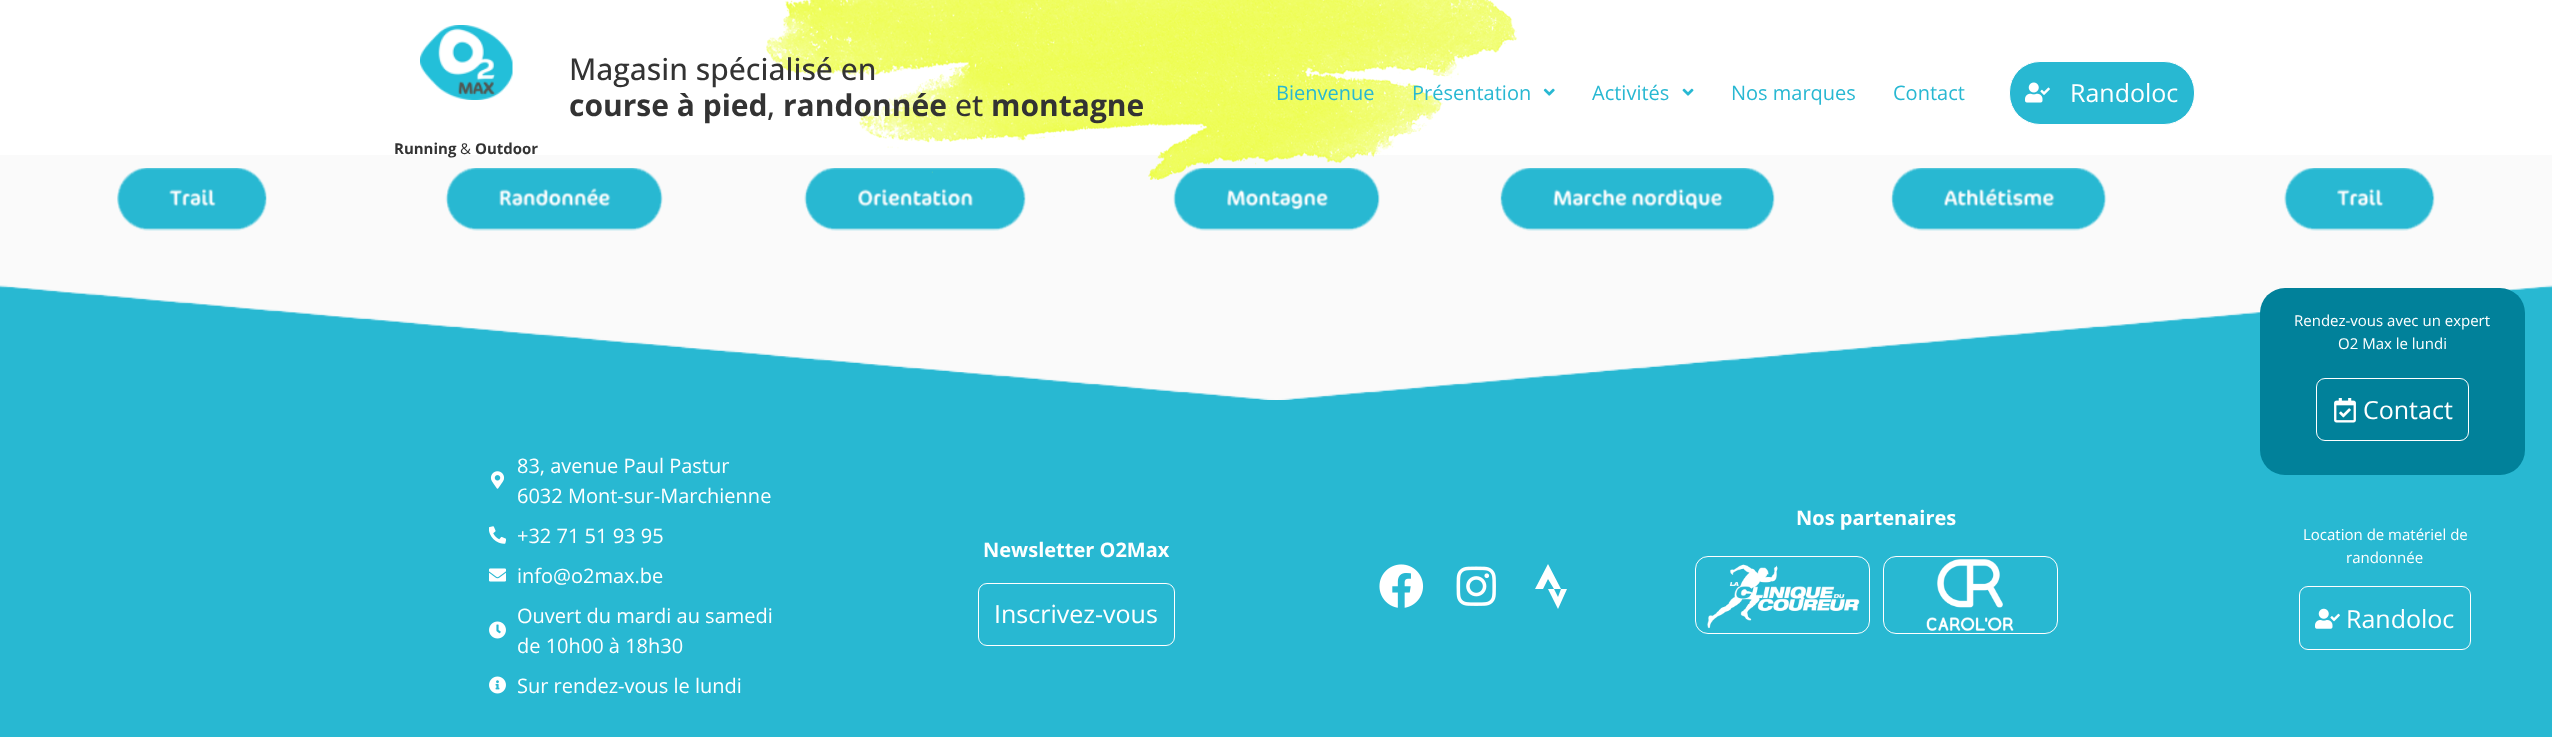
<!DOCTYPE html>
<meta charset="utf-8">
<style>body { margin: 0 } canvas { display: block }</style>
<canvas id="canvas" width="2552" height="737"></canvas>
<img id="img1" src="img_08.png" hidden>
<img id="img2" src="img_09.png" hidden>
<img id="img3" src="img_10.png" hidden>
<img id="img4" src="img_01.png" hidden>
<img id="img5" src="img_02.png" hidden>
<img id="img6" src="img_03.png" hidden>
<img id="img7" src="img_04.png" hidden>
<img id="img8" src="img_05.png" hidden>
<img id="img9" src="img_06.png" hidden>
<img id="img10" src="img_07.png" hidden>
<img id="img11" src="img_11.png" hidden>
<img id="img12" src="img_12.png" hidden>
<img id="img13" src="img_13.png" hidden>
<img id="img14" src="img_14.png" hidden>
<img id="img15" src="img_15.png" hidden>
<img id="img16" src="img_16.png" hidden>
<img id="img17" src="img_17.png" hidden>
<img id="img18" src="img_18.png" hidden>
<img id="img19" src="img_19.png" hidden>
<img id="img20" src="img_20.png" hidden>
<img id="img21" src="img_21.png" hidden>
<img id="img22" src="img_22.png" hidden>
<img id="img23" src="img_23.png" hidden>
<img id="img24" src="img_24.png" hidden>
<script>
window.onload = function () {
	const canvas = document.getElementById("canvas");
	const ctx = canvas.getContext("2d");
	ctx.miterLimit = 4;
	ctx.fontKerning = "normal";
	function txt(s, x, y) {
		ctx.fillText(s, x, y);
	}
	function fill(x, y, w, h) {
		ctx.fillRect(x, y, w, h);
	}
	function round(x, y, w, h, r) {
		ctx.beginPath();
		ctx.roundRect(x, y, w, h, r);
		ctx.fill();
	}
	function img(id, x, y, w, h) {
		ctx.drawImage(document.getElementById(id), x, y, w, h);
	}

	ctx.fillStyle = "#FFFFFF";
	fill(0, 0, 2552, 737);
	ctx.fillStyle = "#FAFAFA";
	fill(0, 155, 2552, 245);
	img("img1", 804, 168, 222, 63);
	img("img2", 1173, 168, 207, 63);
	img("img3", 1500, 168, 275, 63);
	img("img4", 766, 0, 751, 180);
	img("img5", 1543, 88, 12, 8);
	img("img6", 1682, 88, 12, 8);
	ctx.fillStyle = "#28B8D2";
	ctx.beginPath();
	ctx.roundRect(2009.5, 61.5, 185, 63, 30.5);
	ctx.fill();
	ctx.strokeStyle = "#FFFFFF";
	ctx.stroke();
	img("img7", 2025, 82, 25, 21);
	img("img8", 420, 25, 93, 75);
	img("img9", 117, 168, 150, 63);
	img("img10", 445, 168, 218, 63);
	img("img11", 1890, 168, 217, 63);
	img("img12", 2284, 168, 151, 63);
	img("img13", 0, 285, 2552, 115);
	fill(0, 400, 2552, 337);
	ctx.fillStyle = "#01819A";
	round(2260, 288, 265, 187, 25);
	ctx.beginPath();
	ctx.roundRect(2316.5, 378.5, 152, 62, 8.5);
	ctx.stroke();
	img("img14", 2334, 398, 22, 25);
	img("img15", 490, 471, 15, 18);
	img("img16", 489, 526, 17, 18);
	img("img17", 489, 568, 17, 14);
	img("img18", 489, 621, 17, 18);
	img("img19", 489, 676, 17, 18);
	ctx.beginPath();
	ctx.roundRect(1695.5, 556.5, 174, 77, 12.5);
	ctx.stroke();
	img("img20", 1707, 564, 153, 65);
	ctx.beginPath();
	ctx.roundRect(1883.5, 556.5, 174, 77, 12.5);
	ctx.stroke();
	img("img21", 1926, 559, 88, 72);
	ctx.beginPath();
	ctx.roundRect(978.5, 583.5, 196, 62, 8.5);
	ctx.stroke();
	img("img22", 1379, 564, 45, 44);
	img("img23", 1456, 566, 40, 40);
	ctx.fillStyle = "#FFFFFF";
	ctx.beginPath();
	ctx.moveTo(1548, 564);
	ctx.lineTo(1535, 589);
	ctx.lineTo(1543, 589);
	ctx.lineTo(1548, 579);
	ctx.lineTo(1554, 589);
	ctx.lineTo(1561, 589);
	ctx.closePath();
	ctx.moveTo(1561, 589);
	ctx.lineTo(1558, 597);
	ctx.lineTo(1554, 589);
	ctx.lineTo(1548, 589);
	ctx.lineTo(1558, 609);
	ctx.lineTo(1567, 589);
	ctx.closePath();
	ctx.fill();
	ctx.beginPath();
	ctx.roundRect(2299.5, 586.5, 171, 63, 8.5);
	ctx.stroke();
	img("img24", 2315, 608, 25, 21);
	ctx.font = "500 30px Open Sans";
	ctx.fillStyle = "#333333";
	txt("Magasin spécialisé en", 569, 80);
	ctx.font = "bold 30px Open Sans";
	txt("course à pied", 569, 116);
	ctx.font = "500 30px Open Sans";
	txt(",", 767, 116);
	ctx.font = "bold 30px Open Sans";
	txt("randonnée", 783, 116);
	ctx.font = "500 30px Open Sans";
	txt("et", 955, 116);
	ctx.font = "bold 30px Open Sans";
	txt("montagne", 991, 116);
	ctx.font = "20px Open Sans";
	ctx.fillStyle = "#28B8D2";
	txt("Bienvenue", 1276, 100);
	txt("Présentation", 1412, 100);
	txt("Activités", 1592, 100);
	txt("Nos marques", 1731, 100);
	txt("Contact", 1893, 100);
	ctx.font = "25px Open Sans";
	ctx.fillStyle = "#FFFFFF";
	txt("Randoloc", 2070, 102);
	ctx.font = "bold 15px Open Sans";
	ctx.fillStyle = "#333333";
	txt("Running", 394, 154);
	ctx.font = "15px Open Sans";
	txt("&", 460, 154);
	ctx.font = "bold 15px Open Sans";
	txt("Outdoor", 475, 154);
	ctx.font = "15px Open Sans";
	ctx.fillStyle = "#FFFFFF";
	txt("Rendez-vous avec un expert", 2294, 326);
	txt("O2 Max le lundi", 2338, 349);
	ctx.font = "25px Open Sans";
	txt("Contact", 2363, 419);
	ctx.font = "20px Open Sans";
	txt("83, avenue Paul Pastur", 517, 473);
	txt("6032 Mont-sur-Marchienne", 517, 503);
	txt("+32 71 51 93 95", 517, 543);
	txt("info@o2max.be", 517, 583);
	txt("Ouvert du mardi au samedi", 517, 623);
	txt("de 10h00 à 18h30", 517, 653);
	txt("Sur rendez-vous le lundi", 517, 693);
	ctx.font = "bold 20px Open Sans";
	txt("Nos partenaires", 1796, 525);
	txt("Newsletter O2Max", 983, 557);
	ctx.font = "25px Open Sans";
	txt("Inscrivez-vous", 994, 623);
	ctx.font = "15px Open Sans";
	txt("Location de matériel de", 2303, 540);
	txt("randonnée", 2346, 563);
	ctx.font = "25px Open Sans";
	txt("Randoloc", 2346, 628);
};
</script>
